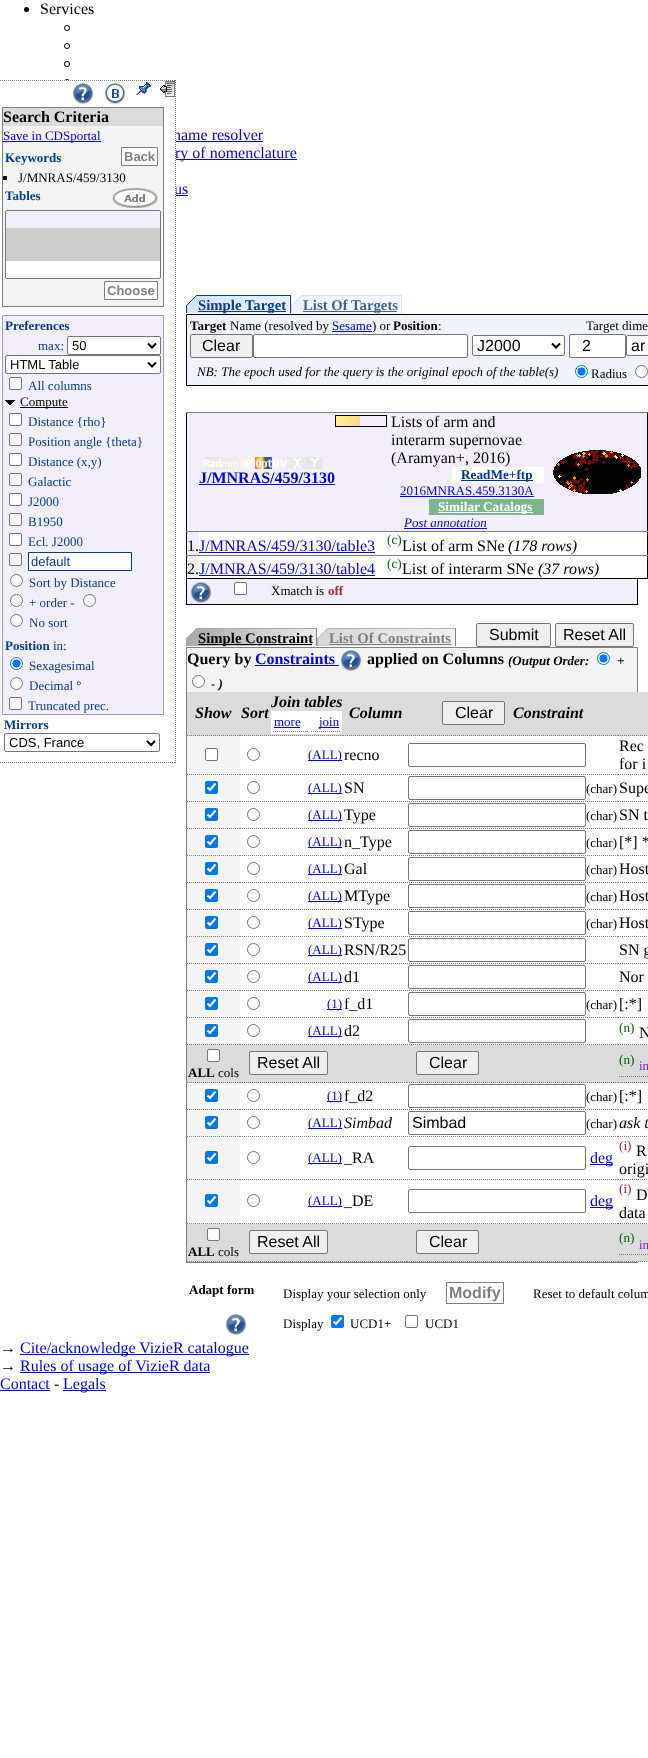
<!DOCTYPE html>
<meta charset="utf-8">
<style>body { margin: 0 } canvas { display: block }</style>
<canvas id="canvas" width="648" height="1758"></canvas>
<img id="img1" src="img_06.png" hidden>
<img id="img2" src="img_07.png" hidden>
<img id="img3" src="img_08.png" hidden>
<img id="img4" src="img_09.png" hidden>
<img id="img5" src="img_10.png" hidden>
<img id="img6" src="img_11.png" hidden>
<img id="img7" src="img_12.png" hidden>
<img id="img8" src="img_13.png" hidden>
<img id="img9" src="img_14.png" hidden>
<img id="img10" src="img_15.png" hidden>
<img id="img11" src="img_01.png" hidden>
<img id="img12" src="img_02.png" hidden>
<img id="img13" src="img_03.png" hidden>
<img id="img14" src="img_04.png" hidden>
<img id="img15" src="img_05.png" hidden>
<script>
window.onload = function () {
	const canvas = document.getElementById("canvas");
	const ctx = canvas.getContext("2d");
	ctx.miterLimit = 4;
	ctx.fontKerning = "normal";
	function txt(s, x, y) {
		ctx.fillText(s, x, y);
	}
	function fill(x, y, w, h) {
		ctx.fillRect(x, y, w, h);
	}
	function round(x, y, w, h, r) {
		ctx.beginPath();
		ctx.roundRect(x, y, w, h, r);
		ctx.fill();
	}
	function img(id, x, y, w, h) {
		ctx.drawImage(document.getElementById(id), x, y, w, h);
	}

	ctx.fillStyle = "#FFFFFF";
	fill(0, 0, 648, 1758);
	ctx.fillStyle = "#000000";
	ctx.beginPath();
	ctx.arc(26.5, 9.5, 2.5, 0, Math.PI * 2);
	ctx.fill();
	ctx.beginPath();
	ctx.arc(67, 28, 2.5, 0, Math.PI * 2);
	ctx.strokeStyle = "#000000";
	ctx.stroke();
	ctx.beginPath();
	ctx.arc(67, 46, 2.5, 0, Math.PI * 2);
	ctx.stroke();
	ctx.beginPath();
	ctx.arc(67, 64, 2.5, 0, Math.PI * 2);
	ctx.stroke();
	ctx.beginPath();
	ctx.arc(67, 82, 2.5, 0, Math.PI * 2);
	ctx.stroke();
	ctx.fillStyle = "#0000EE";
	fill(176, 141, 87, 1);
	fill(176, 159, 121, 1);
	fill(176, 195, 12, 1);
	ctx.beginPath();
	ctx.moveTo(0, 762.5);
	ctx.lineTo(176, 762.5);
	ctx.strokeStyle = "#808080";
	ctx.setLineDash([1, 1]);
	ctx.stroke();
	ctx.fillStyle = "#F2EFFB";
	ctx.beginPath();
	ctx.rect(2.5, 315.5, 161, 399);
	ctx.fill();
	ctx.strokeStyle = "#9C9BD5";
	ctx.setLineDash([]);
	ctx.stroke();
	ctx.fillStyle = "#FFFFFF";
	ctx.beginPath();
	ctx.roundRect(67.5, 336.5, 93, 18, 1.5);
	ctx.fill();
	ctx.strokeStyle = "#767676";
	ctx.stroke();
	ctx.beginPath();
	ctx.moveTo(148, 343.5);
	ctx.lineTo(152, 347.5);
	ctx.lineTo(156, 343.5);
	ctx.strokeStyle = "#000000";
	ctx.lineWidth = 2;
	ctx.stroke();
	ctx.beginPath();
	ctx.roundRect(5.5, 355.5, 155, 18, 1.5);
	ctx.fill();
	ctx.strokeStyle = "#767676";
	ctx.lineWidth = 1;
	ctx.stroke();
	ctx.beginPath();
	ctx.moveTo(148, 362.5);
	ctx.lineTo(152, 366.5);
	ctx.lineTo(156, 362.5);
	ctx.strokeStyle = "#000000";
	ctx.lineWidth = 2;
	ctx.stroke();
	ctx.beginPath();
	ctx.roundRect(9.5, 377.5, 12, 12, 1.5);
	ctx.fill();
	ctx.strokeStyle = "#767676";
	ctx.lineWidth = 1;
	ctx.stroke();
	img("img1", 5, 400, 10, 5);
	ctx.fillStyle = "#000000";
	fill(20, 407, 48, 1);
	ctx.fillStyle = "#FFFFFF";
	ctx.beginPath();
	ctx.roundRect(9.5, 413.5, 12, 12, 1.5);
	ctx.fill();
	ctx.stroke();
	ctx.beginPath();
	ctx.roundRect(9.5, 433.5, 12, 12, 1.5);
	ctx.fill();
	ctx.stroke();
	ctx.beginPath();
	ctx.roundRect(9.5, 453.5, 12, 12, 1.5);
	ctx.fill();
	ctx.stroke();
	ctx.beginPath();
	ctx.roundRect(9.5, 473.5, 12, 12, 1.5);
	ctx.fill();
	ctx.stroke();
	ctx.beginPath();
	ctx.roundRect(9.5, 493.5, 12, 12, 1.5);
	ctx.fill();
	ctx.stroke();
	ctx.beginPath();
	ctx.roundRect(9.5, 513.5, 12, 12, 1.5);
	ctx.fill();
	ctx.stroke();
	ctx.beginPath();
	ctx.roundRect(9.5, 533.5, 12, 12, 1.5);
	ctx.fill();
	ctx.stroke();
	ctx.beginPath();
	ctx.roundRect(9.5, 553.5, 12, 12, 1.5);
	ctx.fill();
	ctx.stroke();
	ctx.beginPath();
	ctx.rect(28.5, 552.5, 103, 18);
	ctx.fill();
	ctx.strokeStyle = "#083C91";
	ctx.stroke();
	ctx.beginPath();
	ctx.arc(16.5, 580.5, 6, 0, Math.PI * 2);
	ctx.fill();
	ctx.strokeStyle = "#767676";
	ctx.stroke();
	ctx.beginPath();
	ctx.arc(16.5, 600.5, 6, 0, Math.PI * 2);
	ctx.fill();
	ctx.stroke();
	ctx.beginPath();
	ctx.arc(89.5, 600.5, 6, 0, Math.PI * 2);
	ctx.fill();
	ctx.stroke();
	ctx.beginPath();
	ctx.arc(16.5, 620.5, 6, 0, Math.PI * 2);
	ctx.fill();
	ctx.stroke();
	ctx.beginPath();
	ctx.arc(16.5, 663.5, 6, 0, Math.PI * 2);
	ctx.fill();
	ctx.strokeStyle = "#0075FF";
	ctx.stroke();
	ctx.fillStyle = "#0075FF";
	ctx.beginPath();
	ctx.arc(16.5, 663.5, 4, 0, Math.PI * 2);
	ctx.fill();
	ctx.fillStyle = "#FFFFFF";
	ctx.beginPath();
	ctx.arc(16.5, 683.5, 6, 0, Math.PI * 2);
	ctx.fill();
	ctx.strokeStyle = "#767676";
	ctx.stroke();
	ctx.beginPath();
	ctx.roundRect(9.5, 697.5, 12, 12, 1.5);
	ctx.fill();
	ctx.stroke();
	ctx.beginPath();
	ctx.roundRect(4.5, 733.5, 155, 18, 1.5);
	ctx.stroke();
	ctx.beginPath();
	ctx.moveTo(147, 741);
	ctx.lineTo(151, 745);
	ctx.lineTo(155, 741);
	ctx.strokeStyle = "#000000";
	ctx.lineWidth = 2;
	ctx.stroke();
	img("img2", 186, 295, 104, 18);
	img("img3", 291, 295, 110, 18);
	ctx.fillStyle = "#083C91";
	fill(290, 295, 1, 18);
	fill(198, 311, 88, 1);
	ctx.fillStyle = "#D5E1FB";
	fill(401, 295, 1, 18);
	ctx.fillStyle = "#42639A";
	fill(303, 311, 94, 1);
	ctx.fillStyle = "#F1F3FB";
	ctx.beginPath();
	ctx.rect(186.5, 314.5, 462, 71);
	ctx.fill();
	ctx.lineWidth = 1;
	ctx.stroke();
	ctx.fillStyle = "#0000EE";
	fill(332, 331, 40, 1);
	ctx.fillStyle = "#EFEFEF";
	ctx.beginPath();
	ctx.roundRect(190.5, 334.5, 62, 23, 1.5);
	ctx.fill();
	ctx.strokeStyle = "#767676";
	ctx.stroke();
	ctx.fillStyle = "#FFFFFF";
	ctx.beginPath();
	ctx.roundRect(253.5, 334.5, 214, 23, 1.5);
	ctx.fill();
	ctx.stroke();
	ctx.beginPath();
	ctx.roundRect(472.5, 335.5, 92, 20, 1.5);
	ctx.fill();
	ctx.stroke();
	ctx.beginPath();
	ctx.moveTo(552, 343.5);
	ctx.lineTo(556, 347.5);
	ctx.lineTo(560, 343.5);
	ctx.strokeStyle = "#000000";
	ctx.lineWidth = 2;
	ctx.stroke();
	ctx.beginPath();
	ctx.roundRect(569.5, 334.5, 56, 23, 1.5);
	ctx.fill();
	ctx.strokeStyle = "#767676";
	ctx.lineWidth = 1;
	ctx.stroke();
	ctx.beginPath();
	ctx.roundRect(626.5, 335.5, 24, 20, 1.5);
	ctx.fill();
	ctx.stroke();
	ctx.beginPath();
	ctx.arc(581.5, 371.5, 6, 0, Math.PI * 2);
	ctx.fill();
	ctx.strokeStyle = "#0075FF";
	ctx.stroke();
	ctx.fillStyle = "#0075FF";
	ctx.beginPath();
	ctx.arc(581.5, 371.5, 4, 0, Math.PI * 2);
	ctx.fill();
	ctx.fillStyle = "#FFFFFF";
	ctx.beginPath();
	ctx.arc(641.5, 371.5, 6, 0, Math.PI * 2);
	ctx.fill();
	ctx.strokeStyle = "#767676";
	ctx.stroke();
	ctx.fillStyle = "#000000";
	fill(647, 412, 1, 167);
	fill(186, 578, 462, 1);
	fill(186, 412, 1, 167);
	ctx.fillStyle = "#808080";
	fill(186, 412, 462, 1);
	ctx.fillStyle = "#F2EFFB";
	fill(391, 413, 256, 118);
	img("img4", 553, 450, 88, 44);
	fill(187, 413, 200, 118);
	fill(387, 413, 4, 119);
	img("img5", 204, 457, 119, 12);
	ctx.fillStyle = "rgba(255, 255, 255, 0.9)";
	fill(204, 457, 17, 12);
	fill(221, 457, 17, 12);
	fill(238, 457, 17, 12);
	fill(272, 457, 17, 12);
	fill(289, 457, 17, 12);
	fill(306, 457, 17, 12);
	ctx.fillStyle = "#0000EE";
	fill(199, 484, 136, 1);
	ctx.strokeStyle = "#000000";
	ctx.strokeRect(335.5, 415.5, 51, 11);
	img("img6", 336, 416, 24, 10);
	ctx.fillStyle = "#FFFFFF";
	fill(452, 467, 92, 16);
	ctx.fillStyle = "#003399";
	fill(461, 480, 72, 1);
	ctx.fillStyle = "#0000FF";
	fill(400, 496, 134, 1);
	ctx.fillStyle = "#7CB68E";
	fill(429, 499, 115, 16);
	ctx.fillStyle = "#FFFFFF";
	fill(438, 512, 95, 1);
	ctx.fillStyle = "#0000EE";
	fill(404, 528, 83, 1);
	ctx.fillStyle = "#F2EFFB";
	fill(187, 532, 12, 23);
	ctx.fillStyle = "#0000EE";
	fill(199, 552, 176, 1);
	ctx.fillStyle = "#808080";
	fill(186, 531, 462, 1);
	ctx.fillStyle = "#F2EFFB";
	fill(187, 556, 12, 22);
	ctx.fillStyle = "#0000EE";
	fill(199, 575, 176, 1);
	ctx.fillStyle = "#808080";
	fill(186, 555, 462, 1);
	ctx.fillStyle = "#F2EFFB";
	fill(187, 579, 450, 25);
	ctx.fillStyle = "#000000";
	fill(637, 579, 1, 26);
	fill(186, 604, 452, 1);
	fill(186, 579, 1, 26);
	img("img7", 190, 582, 22, 22);
	ctx.fillStyle = "#FFFFFF";
	ctx.beginPath();
	ctx.roundRect(234.5, 582.5, 12, 12, 1.5);
	ctx.fill();
	ctx.strokeStyle = "#767676";
	ctx.stroke();
	img("img8", 186, 628, 130, 18);
	img("img9", 317, 628, 138, 18);
	ctx.fillStyle = "#808080";
	fill(316, 628, 1, 18);
	ctx.fillStyle = "#000000";
	fill(198, 644, 114, 1);
	ctx.fillStyle = "#808080";
	fill(455, 628, 1, 18);
	fill(329, 644, 122, 1);
	ctx.fillStyle = "#EFEFEF";
	ctx.beginPath();
	ctx.roundRect(476.5, 623.5, 74, 23, 1.5);
	ctx.fill();
	ctx.stroke();
	ctx.beginPath();
	ctx.roundRect(555.5, 623.5, 78, 23, 1.5);
	ctx.fill();
	ctx.stroke();
	ctx.fillStyle = "#F4F4F4";
	fill(187, 648, 450, 44);
	ctx.strokeStyle = "#808080";
	ctx.strokeRect(186.5, 647.5, 451, 615);
	ctx.fillStyle = "#0000EE";
	fill(255, 665, 84, 1);
	img("img10", 340, 650, 22, 22);
	ctx.fillStyle = "#FFFFFF";
	ctx.beginPath();
	ctx.arc(603.5, 658.5, 6, 0, Math.PI * 2);
	ctx.fill();
	ctx.strokeStyle = "#0075FF";
	ctx.stroke();
	ctx.fillStyle = "#0075FF";
	ctx.beginPath();
	ctx.arc(603.5, 658.5, 4, 0, Math.PI * 2);
	ctx.fill();
	ctx.fillStyle = "#FFFFFF";
	ctx.beginPath();
	ctx.arc(198.5, 681.5, 6, 0, Math.PI * 2);
	ctx.fill();
	ctx.strokeStyle = "#767676";
	ctx.stroke();
	fill(637, 736, 1, 488);
	ctx.fillStyle = "#DBDBDB";
	fill(187, 692, 461, 44);
	ctx.beginPath();
	ctx.moveTo(187, 735.5);
	ctx.lineTo(240, 735.5);
	ctx.strokeStyle = "#808080";
	ctx.setLineDash([1, 1]);
	ctx.stroke();
	ctx.beginPath();
	ctx.moveTo(240, 735.5);
	ctx.lineTo(270, 735.5);
	ctx.stroke();
	ctx.beginPath();
	ctx.moveTo(270, 735.5);
	ctx.lineTo(343, 735.5);
	ctx.stroke();
	ctx.fillStyle = "#FFFFFF";
	fill(271, 711, 71, 23);
	ctx.beginPath();
	ctx.moveTo(273, 731.5);
	ctx.lineTo(309, 731.5);
	ctx.stroke();
	ctx.fillStyle = "#0000EE";
	fill(274, 727, 26, 1);
	ctx.beginPath();
	ctx.moveTo(311, 731.5);
	ctx.lineTo(340, 731.5);
	ctx.stroke();
	fill(319, 727, 20, 1);
	ctx.beginPath();
	ctx.moveTo(343, 735.5);
	ctx.lineTo(407, 735.5);
	ctx.stroke();
	ctx.beginPath();
	ctx.moveTo(407, 735.5);
	ctx.lineTo(618, 735.5);
	ctx.stroke();
	ctx.fillStyle = "#EFEFEF";
	ctx.beginPath();
	ctx.roundRect(442.5, 701.5, 62, 23, 1.5);
	ctx.fill();
	ctx.strokeStyle = "#767676";
	ctx.setLineDash([]);
	ctx.stroke();
	ctx.beginPath();
	ctx.moveTo(618, 735.5);
	ctx.lineTo(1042, 735.5);
	ctx.strokeStyle = "#808080";
	ctx.setLineDash([1, 1]);
	ctx.stroke();
	ctx.fillStyle = "#F4F4F4";
	fill(187, 736, 53, 309);
	ctx.beginPath();
	ctx.moveTo(187, 774.5);
	ctx.lineTo(240, 774.5);
	ctx.stroke();
	ctx.fillStyle = "#FFFFFF";
	ctx.beginPath();
	ctx.roundRect(205.5, 748.5, 12, 12, 1.5);
	ctx.fill();
	ctx.strokeStyle = "#767676";
	ctx.setLineDash([]);
	ctx.stroke();
	ctx.beginPath();
	ctx.moveTo(240, 774.5);
	ctx.lineTo(270, 774.5);
	ctx.strokeStyle = "#808080";
	ctx.setLineDash([1, 1]);
	ctx.stroke();
	ctx.beginPath();
	ctx.arc(253.5, 754.5, 6, 0, Math.PI * 2);
	ctx.strokeStyle = "#767676";
	ctx.setLineDash([]);
	ctx.stroke();
	ctx.beginPath();
	ctx.moveTo(270, 774.5);
	ctx.lineTo(343, 774.5);
	ctx.strokeStyle = "#808080";
	ctx.setLineDash([1, 1]);
	ctx.stroke();
	ctx.fillStyle = "#0000EE";
	fill(308, 760, 34, 1);
	ctx.beginPath();
	ctx.moveTo(343, 774.5);
	ctx.lineTo(407, 774.5);
	ctx.stroke();
	ctx.beginPath();
	ctx.moveTo(407, 774.5);
	ctx.lineTo(618, 774.5);
	ctx.stroke();
	ctx.beginPath();
	ctx.roundRect(408.5, 743.5, 177, 23, 1.5);
	ctx.strokeStyle = "#767676";
	ctx.setLineDash([]);
	ctx.stroke();
	ctx.beginPath();
	ctx.moveTo(618, 774.5);
	ctx.lineTo(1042, 774.5);
	ctx.strokeStyle = "#808080";
	ctx.setLineDash([1, 1]);
	ctx.stroke();
	ctx.beginPath();
	ctx.moveTo(187, 801.5);
	ctx.lineTo(240, 801.5);
	ctx.stroke();
	ctx.fillStyle = "#0075FF";
	round(205, 781, 13, 13, 2);
	ctx.beginPath();
	ctx.moveTo(207.5, 787.5);
	ctx.lineTo(210, 790);
	ctx.lineTo(215.5, 783.5);
	ctx.strokeStyle = "#FFFFFF";
	ctx.lineWidth = 2.1;
	ctx.setLineDash([]);
	ctx.stroke();
	ctx.beginPath();
	ctx.moveTo(240, 801.5);
	ctx.lineTo(270, 801.5);
	ctx.strokeStyle = "#808080";
	ctx.lineWidth = 1;
	ctx.setLineDash([1, 1]);
	ctx.stroke();
	ctx.beginPath();
	ctx.arc(253.5, 787.5, 6, 0, Math.PI * 2);
	ctx.strokeStyle = "#767676";
	ctx.setLineDash([]);
	ctx.stroke();
	ctx.beginPath();
	ctx.moveTo(270, 801.5);
	ctx.lineTo(343, 801.5);
	ctx.strokeStyle = "#808080";
	ctx.setLineDash([1, 1]);
	ctx.stroke();
	ctx.fillStyle = "#0000EE";
	fill(308, 793, 34, 1);
	ctx.beginPath();
	ctx.moveTo(343, 801.5);
	ctx.lineTo(407, 801.5);
	ctx.stroke();
	ctx.beginPath();
	ctx.moveTo(407, 801.5);
	ctx.lineTo(618, 801.5);
	ctx.stroke();
	ctx.beginPath();
	ctx.roundRect(408.5, 776.5, 177, 23, 1.5);
	ctx.strokeStyle = "#767676";
	ctx.setLineDash([]);
	ctx.stroke();
	ctx.beginPath();
	ctx.moveTo(618, 801.5);
	ctx.lineTo(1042, 801.5);
	ctx.strokeStyle = "#808080";
	ctx.setLineDash([1, 1]);
	ctx.stroke();
	ctx.beginPath();
	ctx.moveTo(187, 828.5);
	ctx.lineTo(240, 828.5);
	ctx.stroke();
	ctx.fillStyle = "#0075FF";
	round(205, 808, 13, 13, 2);
	ctx.beginPath();
	ctx.moveTo(207.5, 814.5);
	ctx.lineTo(210, 817);
	ctx.lineTo(215.5, 810.5);
	ctx.strokeStyle = "#FFFFFF";
	ctx.lineWidth = 2.1;
	ctx.setLineDash([]);
	ctx.stroke();
	ctx.beginPath();
	ctx.moveTo(240, 828.5);
	ctx.lineTo(270, 828.5);
	ctx.strokeStyle = "#808080";
	ctx.lineWidth = 1;
	ctx.setLineDash([1, 1]);
	ctx.stroke();
	ctx.beginPath();
	ctx.arc(253.5, 814.5, 6, 0, Math.PI * 2);
	ctx.strokeStyle = "#767676";
	ctx.setLineDash([]);
	ctx.stroke();
	ctx.beginPath();
	ctx.moveTo(270, 828.5);
	ctx.lineTo(343, 828.5);
	ctx.strokeStyle = "#808080";
	ctx.setLineDash([1, 1]);
	ctx.stroke();
	ctx.fillStyle = "#0000EE";
	fill(308, 820, 34, 1);
	ctx.beginPath();
	ctx.moveTo(343, 828.5);
	ctx.lineTo(407, 828.5);
	ctx.stroke();
	ctx.beginPath();
	ctx.moveTo(407, 828.5);
	ctx.lineTo(618, 828.5);
	ctx.stroke();
	ctx.beginPath();
	ctx.roundRect(408.5, 803.5, 177, 23, 1.5);
	ctx.strokeStyle = "#767676";
	ctx.setLineDash([]);
	ctx.stroke();
	ctx.beginPath();
	ctx.moveTo(618, 828.5);
	ctx.lineTo(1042, 828.5);
	ctx.strokeStyle = "#808080";
	ctx.setLineDash([1, 1]);
	ctx.stroke();
	ctx.beginPath();
	ctx.moveTo(187, 855.5);
	ctx.lineTo(240, 855.5);
	ctx.stroke();
	ctx.fillStyle = "#0075FF";
	round(205, 835, 13, 13, 2);
	ctx.beginPath();
	ctx.moveTo(207.5, 841.5);
	ctx.lineTo(210, 844);
	ctx.lineTo(215.5, 837.5);
	ctx.strokeStyle = "#FFFFFF";
	ctx.lineWidth = 2.1;
	ctx.setLineDash([]);
	ctx.stroke();
	ctx.beginPath();
	ctx.moveTo(240, 855.5);
	ctx.lineTo(270, 855.5);
	ctx.strokeStyle = "#808080";
	ctx.lineWidth = 1;
	ctx.setLineDash([1, 1]);
	ctx.stroke();
	ctx.beginPath();
	ctx.arc(253.5, 841.5, 6, 0, Math.PI * 2);
	ctx.strokeStyle = "#767676";
	ctx.setLineDash([]);
	ctx.stroke();
	ctx.beginPath();
	ctx.moveTo(270, 855.5);
	ctx.lineTo(343, 855.5);
	ctx.strokeStyle = "#808080";
	ctx.setLineDash([1, 1]);
	ctx.stroke();
	ctx.fillStyle = "#0000EE";
	fill(308, 847, 34, 1);
	ctx.beginPath();
	ctx.moveTo(343, 855.5);
	ctx.lineTo(407, 855.5);
	ctx.stroke();
	ctx.beginPath();
	ctx.moveTo(407, 855.5);
	ctx.lineTo(618, 855.5);
	ctx.stroke();
	ctx.beginPath();
	ctx.roundRect(408.5, 830.5, 177, 23, 1.5);
	ctx.strokeStyle = "#767676";
	ctx.setLineDash([]);
	ctx.stroke();
	ctx.beginPath();
	ctx.moveTo(618, 855.5);
	ctx.lineTo(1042, 855.5);
	ctx.strokeStyle = "#808080";
	ctx.setLineDash([1, 1]);
	ctx.stroke();
	ctx.beginPath();
	ctx.moveTo(187, 882.5);
	ctx.lineTo(240, 882.5);
	ctx.stroke();
	ctx.fillStyle = "#0075FF";
	round(205, 862, 13, 13, 2);
	ctx.beginPath();
	ctx.moveTo(207.5, 868.5);
	ctx.lineTo(210, 871);
	ctx.lineTo(215.5, 864.5);
	ctx.strokeStyle = "#FFFFFF";
	ctx.lineWidth = 2.1;
	ctx.setLineDash([]);
	ctx.stroke();
	ctx.beginPath();
	ctx.moveTo(240, 882.5);
	ctx.lineTo(270, 882.5);
	ctx.strokeStyle = "#808080";
	ctx.lineWidth = 1;
	ctx.setLineDash([1, 1]);
	ctx.stroke();
	ctx.beginPath();
	ctx.arc(253.5, 868.5, 6, 0, Math.PI * 2);
	ctx.strokeStyle = "#767676";
	ctx.setLineDash([]);
	ctx.stroke();
	ctx.beginPath();
	ctx.moveTo(270, 882.5);
	ctx.lineTo(343, 882.5);
	ctx.strokeStyle = "#808080";
	ctx.setLineDash([1, 1]);
	ctx.stroke();
	ctx.fillStyle = "#0000EE";
	fill(308, 874, 34, 1);
	ctx.beginPath();
	ctx.moveTo(343, 882.5);
	ctx.lineTo(407, 882.5);
	ctx.stroke();
	ctx.beginPath();
	ctx.moveTo(407, 882.5);
	ctx.lineTo(618, 882.5);
	ctx.stroke();
	ctx.beginPath();
	ctx.roundRect(408.5, 857.5, 177, 23, 1.5);
	ctx.strokeStyle = "#767676";
	ctx.setLineDash([]);
	ctx.stroke();
	ctx.beginPath();
	ctx.moveTo(618, 882.5);
	ctx.lineTo(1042, 882.5);
	ctx.strokeStyle = "#808080";
	ctx.setLineDash([1, 1]);
	ctx.stroke();
	ctx.beginPath();
	ctx.moveTo(187, 909.5);
	ctx.lineTo(240, 909.5);
	ctx.stroke();
	ctx.fillStyle = "#0075FF";
	round(205, 889, 13, 13, 2);
	ctx.beginPath();
	ctx.moveTo(207.5, 895.5);
	ctx.lineTo(210, 898);
	ctx.lineTo(215.5, 891.5);
	ctx.strokeStyle = "#FFFFFF";
	ctx.lineWidth = 2.1;
	ctx.setLineDash([]);
	ctx.stroke();
	ctx.beginPath();
	ctx.moveTo(240, 909.5);
	ctx.lineTo(270, 909.5);
	ctx.strokeStyle = "#808080";
	ctx.lineWidth = 1;
	ctx.setLineDash([1, 1]);
	ctx.stroke();
	ctx.beginPath();
	ctx.arc(253.5, 895.5, 6, 0, Math.PI * 2);
	ctx.strokeStyle = "#767676";
	ctx.setLineDash([]);
	ctx.stroke();
	ctx.beginPath();
	ctx.moveTo(270, 909.5);
	ctx.lineTo(343, 909.5);
	ctx.strokeStyle = "#808080";
	ctx.setLineDash([1, 1]);
	ctx.stroke();
	ctx.fillStyle = "#0000EE";
	fill(308, 901, 34, 1);
	ctx.beginPath();
	ctx.moveTo(343, 909.5);
	ctx.lineTo(407, 909.5);
	ctx.stroke();
	ctx.beginPath();
	ctx.moveTo(407, 909.5);
	ctx.lineTo(618, 909.5);
	ctx.stroke();
	ctx.beginPath();
	ctx.roundRect(408.5, 884.5, 177, 23, 1.5);
	ctx.strokeStyle = "#767676";
	ctx.setLineDash([]);
	ctx.stroke();
	ctx.beginPath();
	ctx.moveTo(618, 909.5);
	ctx.lineTo(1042, 909.5);
	ctx.strokeStyle = "#808080";
	ctx.setLineDash([1, 1]);
	ctx.stroke();
	ctx.beginPath();
	ctx.moveTo(187, 936.5);
	ctx.lineTo(240, 936.5);
	ctx.stroke();
	ctx.fillStyle = "#0075FF";
	round(205, 916, 13, 13, 2);
	ctx.beginPath();
	ctx.moveTo(207.5, 922.5);
	ctx.lineTo(210, 925);
	ctx.lineTo(215.5, 918.5);
	ctx.strokeStyle = "#FFFFFF";
	ctx.lineWidth = 2.1;
	ctx.setLineDash([]);
	ctx.stroke();
	ctx.beginPath();
	ctx.moveTo(240, 936.5);
	ctx.lineTo(270, 936.5);
	ctx.strokeStyle = "#808080";
	ctx.lineWidth = 1;
	ctx.setLineDash([1, 1]);
	ctx.stroke();
	ctx.beginPath();
	ctx.arc(253.5, 922.5, 6, 0, Math.PI * 2);
	ctx.strokeStyle = "#767676";
	ctx.setLineDash([]);
	ctx.stroke();
	ctx.beginPath();
	ctx.moveTo(270, 936.5);
	ctx.lineTo(343, 936.5);
	ctx.strokeStyle = "#808080";
	ctx.setLineDash([1, 1]);
	ctx.stroke();
	ctx.fillStyle = "#0000EE";
	fill(308, 928, 34, 1);
	ctx.beginPath();
	ctx.moveTo(343, 936.5);
	ctx.lineTo(407, 936.5);
	ctx.stroke();
	ctx.beginPath();
	ctx.moveTo(407, 936.5);
	ctx.lineTo(618, 936.5);
	ctx.stroke();
	ctx.beginPath();
	ctx.roundRect(408.5, 911.5, 177, 23, 1.5);
	ctx.strokeStyle = "#767676";
	ctx.setLineDash([]);
	ctx.stroke();
	ctx.beginPath();
	ctx.moveTo(618, 936.5);
	ctx.lineTo(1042, 936.5);
	ctx.strokeStyle = "#808080";
	ctx.setLineDash([1, 1]);
	ctx.stroke();
	ctx.beginPath();
	ctx.moveTo(187, 963.5);
	ctx.lineTo(240, 963.5);
	ctx.stroke();
	ctx.fillStyle = "#0075FF";
	round(205, 943, 13, 13, 2);
	ctx.beginPath();
	ctx.moveTo(207.5, 949.5);
	ctx.lineTo(210, 952);
	ctx.lineTo(215.5, 945.5);
	ctx.strokeStyle = "#FFFFFF";
	ctx.lineWidth = 2.1;
	ctx.setLineDash([]);
	ctx.stroke();
	ctx.beginPath();
	ctx.moveTo(240, 963.5);
	ctx.lineTo(270, 963.5);
	ctx.strokeStyle = "#808080";
	ctx.lineWidth = 1;
	ctx.setLineDash([1, 1]);
	ctx.stroke();
	ctx.beginPath();
	ctx.arc(253.5, 949.5, 6, 0, Math.PI * 2);
	ctx.strokeStyle = "#767676";
	ctx.setLineDash([]);
	ctx.stroke();
	ctx.beginPath();
	ctx.moveTo(270, 963.5);
	ctx.lineTo(343, 963.5);
	ctx.strokeStyle = "#808080";
	ctx.setLineDash([1, 1]);
	ctx.stroke();
	ctx.fillStyle = "#0000EE";
	fill(308, 955, 34, 1);
	ctx.beginPath();
	ctx.moveTo(343, 963.5);
	ctx.lineTo(407, 963.5);
	ctx.stroke();
	ctx.beginPath();
	ctx.moveTo(407, 963.5);
	ctx.lineTo(618, 963.5);
	ctx.stroke();
	ctx.beginPath();
	ctx.roundRect(408.5, 938.5, 177, 23, 1.5);
	ctx.strokeStyle = "#767676";
	ctx.setLineDash([]);
	ctx.stroke();
	ctx.beginPath();
	ctx.moveTo(618, 963.5);
	ctx.lineTo(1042, 963.5);
	ctx.strokeStyle = "#808080";
	ctx.setLineDash([1, 1]);
	ctx.stroke();
	ctx.beginPath();
	ctx.moveTo(187, 990.5);
	ctx.lineTo(240, 990.5);
	ctx.stroke();
	ctx.fillStyle = "#0075FF";
	round(205, 970, 13, 13, 2);
	ctx.beginPath();
	ctx.moveTo(207.5, 976.5);
	ctx.lineTo(210, 979);
	ctx.lineTo(215.5, 972.5);
	ctx.strokeStyle = "#FFFFFF";
	ctx.lineWidth = 2.1;
	ctx.setLineDash([]);
	ctx.stroke();
	ctx.beginPath();
	ctx.moveTo(240, 990.5);
	ctx.lineTo(270, 990.5);
	ctx.strokeStyle = "#808080";
	ctx.lineWidth = 1;
	ctx.setLineDash([1, 1]);
	ctx.stroke();
	ctx.beginPath();
	ctx.arc(253.5, 976.5, 6, 0, Math.PI * 2);
	ctx.strokeStyle = "#767676";
	ctx.setLineDash([]);
	ctx.stroke();
	ctx.beginPath();
	ctx.moveTo(270, 990.5);
	ctx.lineTo(343, 990.5);
	ctx.strokeStyle = "#808080";
	ctx.setLineDash([1, 1]);
	ctx.stroke();
	ctx.fillStyle = "#0000EE";
	fill(308, 982, 34, 1);
	ctx.beginPath();
	ctx.moveTo(343, 990.5);
	ctx.lineTo(407, 990.5);
	ctx.stroke();
	ctx.beginPath();
	ctx.moveTo(407, 990.5);
	ctx.lineTo(618, 990.5);
	ctx.stroke();
	ctx.beginPath();
	ctx.roundRect(408.5, 965.5, 177, 23, 1.5);
	ctx.strokeStyle = "#767676";
	ctx.setLineDash([]);
	ctx.stroke();
	ctx.beginPath();
	ctx.moveTo(618, 990.5);
	ctx.lineTo(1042, 990.5);
	ctx.strokeStyle = "#808080";
	ctx.setLineDash([1, 1]);
	ctx.stroke();
	ctx.beginPath();
	ctx.moveTo(187, 1017.5);
	ctx.lineTo(240, 1017.5);
	ctx.stroke();
	ctx.fillStyle = "#0075FF";
	round(205, 997, 13, 13, 2);
	ctx.beginPath();
	ctx.moveTo(207.5, 1003.5);
	ctx.lineTo(210, 1006);
	ctx.lineTo(215.5, 999.5);
	ctx.strokeStyle = "#FFFFFF";
	ctx.lineWidth = 2.1;
	ctx.setLineDash([]);
	ctx.stroke();
	ctx.beginPath();
	ctx.moveTo(240, 1017.5);
	ctx.lineTo(270, 1017.5);
	ctx.strokeStyle = "#808080";
	ctx.lineWidth = 1;
	ctx.setLineDash([1, 1]);
	ctx.stroke();
	ctx.beginPath();
	ctx.arc(253.5, 1003.5, 6, 0, Math.PI * 2);
	ctx.strokeStyle = "#767676";
	ctx.setLineDash([]);
	ctx.stroke();
	ctx.beginPath();
	ctx.moveTo(270, 1017.5);
	ctx.lineTo(343, 1017.5);
	ctx.strokeStyle = "#808080";
	ctx.setLineDash([1, 1]);
	ctx.stroke();
	ctx.fillStyle = "#0000EE";
	fill(327, 1009, 15, 1);
	ctx.beginPath();
	ctx.moveTo(343, 1017.5);
	ctx.lineTo(407, 1017.5);
	ctx.stroke();
	ctx.beginPath();
	ctx.moveTo(407, 1017.5);
	ctx.lineTo(618, 1017.5);
	ctx.stroke();
	ctx.beginPath();
	ctx.roundRect(408.5, 992.5, 177, 23, 1.5);
	ctx.strokeStyle = "#767676";
	ctx.setLineDash([]);
	ctx.stroke();
	ctx.beginPath();
	ctx.moveTo(618, 1017.5);
	ctx.lineTo(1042, 1017.5);
	ctx.strokeStyle = "#808080";
	ctx.setLineDash([1, 1]);
	ctx.stroke();
	ctx.beginPath();
	ctx.moveTo(187, 1044.5);
	ctx.lineTo(240, 1044.5);
	ctx.stroke();
	ctx.fillStyle = "#0075FF";
	round(205, 1024, 13, 13, 2);
	ctx.beginPath();
	ctx.moveTo(207.5, 1030.5);
	ctx.lineTo(210, 1033);
	ctx.lineTo(215.5, 1026.5);
	ctx.strokeStyle = "#FFFFFF";
	ctx.lineWidth = 2.1;
	ctx.setLineDash([]);
	ctx.stroke();
	ctx.beginPath();
	ctx.moveTo(240, 1044.5);
	ctx.lineTo(270, 1044.5);
	ctx.strokeStyle = "#808080";
	ctx.lineWidth = 1;
	ctx.setLineDash([1, 1]);
	ctx.stroke();
	ctx.beginPath();
	ctx.arc(253.5, 1030.5, 6, 0, Math.PI * 2);
	ctx.strokeStyle = "#767676";
	ctx.setLineDash([]);
	ctx.stroke();
	ctx.beginPath();
	ctx.moveTo(270, 1044.5);
	ctx.lineTo(343, 1044.5);
	ctx.strokeStyle = "#808080";
	ctx.setLineDash([1, 1]);
	ctx.stroke();
	ctx.fillStyle = "#0000EE";
	fill(308, 1036, 34, 1);
	ctx.beginPath();
	ctx.moveTo(343, 1044.5);
	ctx.lineTo(407, 1044.5);
	ctx.stroke();
	ctx.beginPath();
	ctx.moveTo(407, 1044.5);
	ctx.lineTo(618, 1044.5);
	ctx.stroke();
	ctx.beginPath();
	ctx.roundRect(408.5, 1019.5, 177, 23, 1.5);
	ctx.strokeStyle = "#767676";
	ctx.setLineDash([]);
	ctx.stroke();
	ctx.beginPath();
	ctx.moveTo(618, 1044.5);
	ctx.lineTo(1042, 1044.5);
	ctx.strokeStyle = "#808080";
	ctx.setLineDash([1, 1]);
	ctx.stroke();
	ctx.fillStyle = "#DBDBDB";
	fill(187, 1045, 461, 38);
	ctx.beginPath();
	ctx.moveTo(240, 1082.5);
	ctx.lineTo(407, 1082.5);
	ctx.stroke();
	ctx.fillStyle = "#EFEFEF";
	ctx.beginPath();
	ctx.roundRect(249.5, 1051.5, 78, 23, 1.5);
	ctx.fill();
	ctx.strokeStyle = "#767676";
	ctx.setLineDash([]);
	ctx.stroke();
	ctx.beginPath();
	ctx.moveTo(407, 1082.5);
	ctx.lineTo(618, 1082.5);
	ctx.strokeStyle = "#808080";
	ctx.setLineDash([1, 1]);
	ctx.stroke();
	ctx.beginPath();
	ctx.roundRect(416.5, 1051.5, 62, 23, 1.5);
	ctx.fill();
	ctx.strokeStyle = "#767676";
	ctx.setLineDash([]);
	ctx.stroke();
	ctx.beginPath();
	ctx.moveTo(618, 1082.5);
	ctx.lineTo(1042, 1082.5);
	ctx.moveTo(619, 1076.5);
	ctx.lineTo(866, 1076.5);
	ctx.strokeStyle = "#808080";
	ctx.setLineDash([1, 1]);
	ctx.stroke();
	ctx.beginPath();
	ctx.moveTo(187, 1082.5);
	ctx.lineTo(240, 1082.5);
	ctx.stroke();
	ctx.fillStyle = "#FFFFFF";
	ctx.beginPath();
	ctx.roundRect(207.5, 1049.5, 12, 12, 1.5);
	ctx.fill();
	ctx.strokeStyle = "#767676";
	ctx.setLineDash([]);
	ctx.stroke();
	ctx.fillStyle = "#F4F4F4";
	fill(187, 1083, 53, 141);
	ctx.beginPath();
	ctx.moveTo(187, 1109.5);
	ctx.lineTo(240, 1109.5);
	ctx.strokeStyle = "#808080";
	ctx.setLineDash([1, 1]);
	ctx.stroke();
	ctx.fillStyle = "#0075FF";
	round(205, 1089, 13, 13, 2);
	ctx.beginPath();
	ctx.moveTo(207.5, 1095.5);
	ctx.lineTo(210, 1098);
	ctx.lineTo(215.5, 1091.5);
	ctx.strokeStyle = "#FFFFFF";
	ctx.lineWidth = 2.1;
	ctx.setLineDash([]);
	ctx.stroke();
	ctx.beginPath();
	ctx.moveTo(240, 1109.5);
	ctx.lineTo(270, 1109.5);
	ctx.strokeStyle = "#808080";
	ctx.lineWidth = 1;
	ctx.setLineDash([1, 1]);
	ctx.stroke();
	ctx.beginPath();
	ctx.arc(253.5, 1095.5, 6, 0, Math.PI * 2);
	ctx.strokeStyle = "#767676";
	ctx.setLineDash([]);
	ctx.stroke();
	ctx.beginPath();
	ctx.moveTo(270, 1109.5);
	ctx.lineTo(343, 1109.5);
	ctx.strokeStyle = "#808080";
	ctx.setLineDash([1, 1]);
	ctx.stroke();
	ctx.fillStyle = "#0000EE";
	fill(327, 1101, 15, 1);
	ctx.beginPath();
	ctx.moveTo(343, 1109.5);
	ctx.lineTo(407, 1109.5);
	ctx.stroke();
	ctx.beginPath();
	ctx.moveTo(407, 1109.5);
	ctx.lineTo(618, 1109.5);
	ctx.stroke();
	ctx.beginPath();
	ctx.roundRect(408.5, 1084.5, 177, 23, 1.5);
	ctx.strokeStyle = "#767676";
	ctx.setLineDash([]);
	ctx.stroke();
	ctx.beginPath();
	ctx.moveTo(618, 1109.5);
	ctx.lineTo(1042, 1109.5);
	ctx.strokeStyle = "#808080";
	ctx.setLineDash([1, 1]);
	ctx.stroke();
	ctx.beginPath();
	ctx.moveTo(187, 1136.5);
	ctx.lineTo(240, 1136.5);
	ctx.stroke();
	ctx.fillStyle = "#0075FF";
	round(205, 1116, 13, 13, 2);
	ctx.beginPath();
	ctx.moveTo(207.5, 1122.5);
	ctx.lineTo(210, 1125);
	ctx.lineTo(215.5, 1118.5);
	ctx.strokeStyle = "#FFFFFF";
	ctx.lineWidth = 2.1;
	ctx.setLineDash([]);
	ctx.stroke();
	ctx.beginPath();
	ctx.moveTo(240, 1136.5);
	ctx.lineTo(270, 1136.5);
	ctx.strokeStyle = "#808080";
	ctx.lineWidth = 1;
	ctx.setLineDash([1, 1]);
	ctx.stroke();
	ctx.beginPath();
	ctx.arc(253.5, 1122.5, 6, 0, Math.PI * 2);
	ctx.strokeStyle = "#767676";
	ctx.setLineDash([]);
	ctx.stroke();
	ctx.beginPath();
	ctx.moveTo(270, 1136.5);
	ctx.lineTo(343, 1136.5);
	ctx.strokeStyle = "#808080";
	ctx.setLineDash([1, 1]);
	ctx.stroke();
	ctx.fillStyle = "#0000EE";
	fill(308, 1128, 34, 1);
	ctx.beginPath();
	ctx.moveTo(343, 1136.5);
	ctx.lineTo(407, 1136.5);
	ctx.stroke();
	ctx.beginPath();
	ctx.moveTo(407, 1136.5);
	ctx.lineTo(618, 1136.5);
	ctx.stroke();
	ctx.beginPath();
	ctx.roundRect(408.5, 1111.5, 177, 23, 1.5);
	ctx.strokeStyle = "#767676";
	ctx.setLineDash([]);
	ctx.stroke();
	ctx.beginPath();
	ctx.moveTo(618, 1136.5);
	ctx.lineTo(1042, 1136.5);
	ctx.strokeStyle = "#808080";
	ctx.setLineDash([1, 1]);
	ctx.stroke();
	ctx.beginPath();
	ctx.moveTo(187, 1179.5);
	ctx.lineTo(240, 1179.5);
	ctx.stroke();
	ctx.fillStyle = "#0075FF";
	round(205, 1151, 13, 13, 2);
	ctx.beginPath();
	ctx.moveTo(207.5, 1157.5);
	ctx.lineTo(210, 1160);
	ctx.lineTo(215.5, 1153.5);
	ctx.strokeStyle = "#FFFFFF";
	ctx.lineWidth = 2.1;
	ctx.setLineDash([]);
	ctx.stroke();
	ctx.beginPath();
	ctx.moveTo(240, 1179.5);
	ctx.lineTo(270, 1179.5);
	ctx.strokeStyle = "#808080";
	ctx.lineWidth = 1;
	ctx.setLineDash([1, 1]);
	ctx.stroke();
	ctx.beginPath();
	ctx.arc(253.5, 1157.5, 6, 0, Math.PI * 2);
	ctx.strokeStyle = "#767676";
	ctx.setLineDash([]);
	ctx.stroke();
	ctx.beginPath();
	ctx.moveTo(270, 1179.5);
	ctx.lineTo(343, 1179.5);
	ctx.strokeStyle = "#808080";
	ctx.setLineDash([1, 1]);
	ctx.stroke();
	ctx.fillStyle = "#0000EE";
	fill(308, 1163, 34, 1);
	ctx.beginPath();
	ctx.moveTo(343, 1179.5);
	ctx.lineTo(407, 1179.5);
	ctx.stroke();
	ctx.beginPath();
	ctx.moveTo(407, 1179.5);
	ctx.lineTo(618, 1179.5);
	ctx.stroke();
	ctx.beginPath();
	ctx.roundRect(408.5, 1146.5, 177, 23, 1.5);
	ctx.strokeStyle = "#767676";
	ctx.setLineDash([]);
	ctx.stroke();
	fill(590, 1164, 23, 1);
	ctx.beginPath();
	ctx.moveTo(618, 1179.5);
	ctx.lineTo(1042, 1179.5);
	ctx.strokeStyle = "#808080";
	ctx.setLineDash([1, 1]);
	ctx.stroke();
	ctx.beginPath();
	ctx.moveTo(187, 1223.5);
	ctx.lineTo(240, 1223.5);
	ctx.stroke();
	ctx.fillStyle = "#0075FF";
	round(205, 1194, 13, 13, 2);
	ctx.beginPath();
	ctx.moveTo(207.5, 1200.5);
	ctx.lineTo(210, 1203);
	ctx.lineTo(215.5, 1196.5);
	ctx.strokeStyle = "#FFFFFF";
	ctx.lineWidth = 2.1;
	ctx.setLineDash([]);
	ctx.stroke();
	ctx.beginPath();
	ctx.moveTo(240, 1223.5);
	ctx.lineTo(270, 1223.5);
	ctx.strokeStyle = "#808080";
	ctx.lineWidth = 1;
	ctx.setLineDash([1, 1]);
	ctx.stroke();
	ctx.beginPath();
	ctx.arc(253.5, 1200.5, 6, 0, Math.PI * 2);
	ctx.strokeStyle = "#767676";
	ctx.setLineDash([]);
	ctx.stroke();
	ctx.beginPath();
	ctx.moveTo(270, 1223.5);
	ctx.lineTo(343, 1223.5);
	ctx.strokeStyle = "#808080";
	ctx.setLineDash([1, 1]);
	ctx.stroke();
	ctx.fillStyle = "#0000EE";
	fill(308, 1206, 34, 1);
	ctx.beginPath();
	ctx.moveTo(343, 1223.5);
	ctx.lineTo(407, 1223.5);
	ctx.stroke();
	ctx.beginPath();
	ctx.moveTo(407, 1223.5);
	ctx.lineTo(618, 1223.5);
	ctx.stroke();
	ctx.beginPath();
	ctx.roundRect(408.5, 1189.5, 177, 23, 1.5);
	ctx.strokeStyle = "#767676";
	ctx.setLineDash([]);
	ctx.stroke();
	fill(590, 1207, 23, 1);
	ctx.beginPath();
	ctx.moveTo(618, 1223.5);
	ctx.lineTo(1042, 1223.5);
	ctx.strokeStyle = "#808080";
	ctx.setLineDash([1, 1]);
	ctx.stroke();
	ctx.fillStyle = "#DBDBDB";
	fill(187, 1224, 461, 38);
	ctx.beginPath();
	ctx.moveTo(240, 1261.5);
	ctx.lineTo(407, 1261.5);
	ctx.stroke();
	ctx.fillStyle = "#EFEFEF";
	ctx.beginPath();
	ctx.roundRect(249.5, 1230.5, 78, 23, 1.5);
	ctx.fill();
	ctx.strokeStyle = "#767676";
	ctx.setLineDash([]);
	ctx.stroke();
	ctx.beginPath();
	ctx.moveTo(407, 1261.5);
	ctx.lineTo(618, 1261.5);
	ctx.strokeStyle = "#808080";
	ctx.setLineDash([1, 1]);
	ctx.stroke();
	ctx.beginPath();
	ctx.roundRect(416.5, 1230.5, 62, 23, 1.5);
	ctx.fill();
	ctx.strokeStyle = "#767676";
	ctx.setLineDash([]);
	ctx.stroke();
	ctx.beginPath();
	ctx.moveTo(618, 1261.5);
	ctx.lineTo(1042, 1261.5);
	ctx.moveTo(619, 1254.5);
	ctx.lineTo(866, 1254.5);
	ctx.strokeStyle = "#808080";
	ctx.setLineDash([1, 1]);
	ctx.stroke();
	ctx.beginPath();
	ctx.moveTo(187, 1261.5);
	ctx.lineTo(240, 1261.5);
	ctx.stroke();
	ctx.fillStyle = "#FFFFFF";
	ctx.beginPath();
	ctx.roundRect(207.5, 1228.5, 12, 12, 1.5);
	ctx.fill();
	ctx.strokeStyle = "#767676";
	ctx.setLineDash([]);
	ctx.stroke();
	ctx.strokeStyle = "#808080";
	ctx.strokeRect(446.5, 1282.5, 57, 21);
	img("img11", 225, 1314, 22, 22);
	ctx.fillStyle = "#0075FF";
	round(331, 1315, 13, 13, 2);
	ctx.beginPath();
	ctx.moveTo(333.5, 1321.5);
	ctx.lineTo(336, 1324);
	ctx.lineTo(341.5, 1317.5);
	ctx.strokeStyle = "#FFFFFF";
	ctx.lineWidth = 2.1;
	ctx.stroke();
	ctx.beginPath();
	ctx.roundRect(405.5, 1315.5, 12, 12, 1.5);
	ctx.strokeStyle = "#767676";
	ctx.lineWidth = 1;
	ctx.stroke();
	ctx.fillStyle = "#0000EE";
	fill(20, 1354, 229, 1);
	fill(20, 1372, 190, 1);
	fill(0, 1390, 50, 1);
	fill(63, 1390, 43, 1);
	ctx.font = "16px Liberation Serif";
	ctx.fillStyle = "#000000";
	txt("Services", 40, 14);
	ctx.fillStyle = "#0000EE";
	txt("name resolver", 173, 140);
	txt("ry of nomenclature", 175, 158);
	txt("us", 174, 194);
	ctx.fillStyle = "#FFFFFF";
	fill(64, 80, 112, 114);
	ctx.beginPath();
	ctx.moveTo(0, 80.5);
	ctx.lineTo(176, 80.5);
	ctx.strokeStyle = "#808080";
	ctx.setLineDash([1, 1]);
	ctx.stroke();
	ctx.beginPath();
	ctx.moveTo(175.5, 80);
	ctx.lineTo(175.5, 763);
	ctx.stroke();
	img("img11", 72, 83, 22, 22);
	img("img12", 104, 83, 22, 22);
	img("img13", 136, 82, 15, 13);
	img("img14", 160, 81, 15, 16);
	ctx.fillStyle = "#F4F4F4";
	fill(3, 126, 160, 180);
	ctx.setLineDash([]);
	ctx.strokeRect(2.5, 107.5, 161, 199);
	ctx.fillStyle = "#DBDBDB";
	fill(3, 108, 160, 18);
	ctx.font = "bold 16px Liberation Serif";
	ctx.fillStyle = "#000000";
	txt("Search Criteria", 3, 122);
	ctx.fillStyle = "#0000EE";
	fill(3, 141, 98, 1);
	ctx.font = "13px Liberation Serif";
	txt("Save in CDSportal", 3, 140);
	ctx.font = "bold 13px Liberation Serif";
	ctx.fillStyle = "#083C91";
	txt("Keywords", 5, 162);
	ctx.fillStyle = "#FFFFFF";
	ctx.beginPath();
	ctx.rect(121.5, 147.5, 36, 18);
	ctx.fill();
	ctx.stroke();
	ctx.font = "bold 13px Liberation Sans";
	ctx.fillStyle = "#808080";
	txt("Back", 124, 161);
	ctx.fillStyle = "#000000";
	fill(3, 176, 4, 4);
	ctx.font = "13px Liberation Serif";
	txt("J/MNRAS/459/3130", 18, 182);
	ctx.font = "bold 13px Liberation Serif";
	ctx.fillStyle = "#083C91";
	txt("Tables", 5, 200);
	img("img15", 112, 188, 46, 20);
	ctx.fillStyle = "#FFFFFF";
	ctx.beginPath();
	ctx.roundRect(5.5, 210.5, 155, 68, 1.5);
	ctx.fill();
	ctx.strokeStyle = "#767676";
	ctx.stroke();
	ctx.fillStyle = "#F2EFFB";
	ctx.beginPath();
	ctx.roundRect(6, 211, 154, 17, [1, 1, 0, 0]);
	ctx.fill();
	ctx.fillStyle = "#CECECE";
	fill(6, 228, 154, 33);
	ctx.fillStyle = "#FFFFFF";
	ctx.beginPath();
	ctx.rect(104.5, 281.5, 53, 18);
	ctx.fill();
	ctx.strokeStyle = "#808080";
	ctx.stroke();
	ctx.font = "bold 13px Liberation Sans";
	ctx.fillStyle = "#808080";
	txt("Choose", 107, 295);
	ctx.font = "bold 13px Liberation Serif";
	ctx.fillStyle = "#083C91";
	txt("Preferences", 5, 330);
	ctx.font = "13px Liberation Serif";
	txt("max:", 38, 350);
	ctx.font = "13px Liberation Sans";
	ctx.fillStyle = "#000000";
	txt("50", 72, 350);
	txt("HTML Table", 10, 369);
	ctx.font = "13px Liberation Serif";
	ctx.fillStyle = "#083C91";
	txt("All columns", 28, 390);
	ctx.fillStyle = "#000000";
	txt("Compute", 20, 406);
	ctx.fillStyle = "#083C91";
	txt("Distance {rho}", 28, 426);
	txt("Position angle {theta}", 28, 446);
	txt("Distance (x,y)", 28, 466);
	txt("Galactic", 28, 486);
	txt("J2000", 28, 506);
	txt("B1950", 28, 526);
	txt("Ecl. J2000", 28, 546);
	ctx.font = "13px Liberation Sans";
	txt("default", 31, 566);
	ctx.font = "13px Liberation Serif";
	txt("Sort by Distance", 29, 587);
	txt("+ order -", 29, 607);
	txt("No sort", 29, 627);
	ctx.font = "bold 13px Liberation Serif";
	txt("Position", 5, 650);
	ctx.font = "13px Liberation Serif";
	txt("in:", 53, 650);
	txt("Sexagesimal", 29, 670);
	txt("Decimal °", 29, 690);
	txt("Truncated prec.", 28, 710);
	ctx.font = "bold 13px Liberation Serif";
	txt("Mirrors", 4, 729);
	ctx.font = "13px Liberation Sans";
	ctx.fillStyle = "#000000";
	txt("CDS, France", 9, 747);
	ctx.font = "bold 14.75px Liberation Serif";
	ctx.fillStyle = "#083C91";
	txt("Simple Target", 198, 310);
	ctx.fillStyle = "#42639A";
	txt("List Of Targets", 303, 310);
	ctx.font = "bold 13px Liberation Serif";
	ctx.fillStyle = "#000000";
	txt("Target", 190, 330);
	ctx.font = "13px Liberation Serif";
	txt("Name (resolved by", 230, 330);
	ctx.fillStyle = "#0000EE";
	txt("Sesame", 332, 330);
	ctx.fillStyle = "#000000";
	txt(") or", 372, 330);
	ctx.font = "bold 13px Liberation Serif";
	txt("Position", 393, 330);
	ctx.font = "13px Liberation Serif";
	txt(":", 438, 330);
	ctx.font = "16px Liberation Sans";
	txt("Clear", 202, 351);
	txt("J2000", 477, 351);
	ctx.font = "13px Liberation Serif";
	txt("Target dime", 586, 330);
	ctx.font = "16px Liberation Sans";
	txt("2", 582, 351);
	txt("ar", 631, 351);
	ctx.font = "italic 13px Liberation Serif";
	txt("NB: The epoch used for the query is the original epoch of the table(s)", 197, 376);
	ctx.font = "13px Liberation Serif";
	txt("Radius", 591, 378);
	ctx.font = "bold 16px Liberation Serif";
	ctx.fillStyle = "#0000EE";
	txt("J/MNRAS/459/3130", 199, 483);
	ctx.font = "16px Liberation Serif";
	ctx.fillStyle = "#000000";
	txt("Lists of arm and", 391, 427);
	txt("interarm supernovae", 391, 445);
	txt("(Aramyan+, 2016)", 391, 463);
	ctx.font = "bold 13.25px Liberation Serif";
	ctx.fillStyle = "#003399";
	txt("ReadMe+ftp", 461, 479);
	ctx.font = "13px Liberation Serif";
	ctx.fillStyle = "#0000FF";
	txt("2016MNRAS.459.3130A", 400, 495);
	ctx.font = "bold 13.25px Liberation Serif";
	ctx.fillStyle = "#FFFFFF";
	txt("Similar Catalogs", 438, 511);
	ctx.font = "italic 13px Liberation Serif";
	ctx.fillStyle = "#0000EE";
	txt("Post annotation", 404, 527);
	ctx.font = "16px Liberation Serif";
	ctx.fillStyle = "#000000";
	txt("1.", 187, 551);
	ctx.fillStyle = "#0000EE";
	txt("J/MNRAS/459/3130/table3", 199, 551);
	ctx.font = "13.25px Liberation Serif";
	ctx.fillStyle = "#006400";
	txt("(c)", 387, 544);
	ctx.font = "16px Liberation Serif";
	ctx.fillStyle = "#000000";
	txt("List of arm SNe", 402, 551);
	ctx.font = "italic 16px Liberation Serif";
	txt("(178 rows)", 508, 551);
	ctx.font = "16px Liberation Serif";
	txt("2.", 187, 574);
	ctx.fillStyle = "#0000EE";
	txt("J/MNRAS/459/3130/table4", 199, 574);
	ctx.font = "13.25px Liberation Serif";
	ctx.fillStyle = "#006400";
	txt("(c)", 387, 568);
	ctx.font = "16px Liberation Serif";
	ctx.fillStyle = "#000000";
	txt("List of interarm SNe", 402, 574);
	ctx.font = "italic 16px Liberation Serif";
	txt("(37 rows)", 538, 574);
	ctx.font = "13px Liberation Serif";
	txt("Xmatch is", 271, 595);
	ctx.font = "bold 13px Liberation Serif";
	ctx.fillStyle = "#A52A2A";
	txt("off", 328, 595);
	ctx.font = "bold 14.75px Liberation Serif";
	ctx.fillStyle = "#000000";
	txt("Simple Constraint", 198, 643);
	ctx.fillStyle = "#808080";
	txt("List Of Constraints", 329, 643);
	ctx.font = "16px Liberation Sans";
	ctx.fillStyle = "#000000";
	txt("Submit", 489, 640);
	txt("Reset All", 563, 640);
	ctx.font = "bold 16px Liberation Serif";
	txt("Query by", 187, 664);
	ctx.fillStyle = "#0000EE";
	txt("Constraints", 255, 664);
	ctx.fillStyle = "#000000";
	txt("applied on Columns", 367, 664);
	ctx.font = "italic bold 13px Liberation Serif";
	txt("(Output Order:", 508, 665);
	txt("+", 617, 665);
	txt("- )", 211, 688);
	ctx.font = "italic bold 16px Liberation Serif";
	txt("Show", 195, 718);
	txt("Sort", 241, 718);
	txt("Join tables", 271, 707);
	ctx.font = "13px Liberation Serif";
	ctx.fillStyle = "#0000EE";
	txt("more", 274, 726);
	txt("join", 319, 726);
	ctx.font = "italic bold 16px Liberation Serif";
	ctx.fillStyle = "#000000";
	txt("Column", 349, 718);
	ctx.font = "16px Liberation Sans";
	txt("Clear", 455, 718);
	ctx.font = "italic bold 16px Liberation Serif";
	txt("Constraint", 513, 718);
	ctx.font = "13px Liberation Serif";
	ctx.fillStyle = "#0000EE";
	txt("(ALL)", 308, 759);
	ctx.font = "16px Liberation Serif";
	ctx.fillStyle = "#000000";
	txt("recno", 344, 760);
	txt("Rec", 619, 751);
	txt("for i", 619, 769);
	ctx.font = "13px Liberation Serif";
	ctx.fillStyle = "#0000EE";
	txt("(ALL)", 308, 792);
	ctx.font = "16px Liberation Serif";
	ctx.fillStyle = "#000000";
	txt("SN", 344, 793);
	ctx.font = "13px Liberation Serif";
	txt("(char)", 586, 793);
	ctx.font = "16px Liberation Serif";
	txt("Supe", 619, 793);
	ctx.font = "13px Liberation Serif";
	ctx.fillStyle = "#0000EE";
	txt("(ALL)", 308, 819);
	ctx.font = "16px Liberation Serif";
	ctx.fillStyle = "#000000";
	txt("Type", 344, 820);
	ctx.font = "13px Liberation Serif";
	txt("(char)", 586, 820);
	ctx.font = "16px Liberation Serif";
	txt("SN t", 619, 820);
	ctx.font = "13px Liberation Serif";
	ctx.fillStyle = "#0000EE";
	txt("(ALL)", 308, 846);
	ctx.font = "16px Liberation Serif";
	ctx.fillStyle = "#000000";
	txt("n_Type", 344, 847);
	ctx.font = "13px Liberation Serif";
	txt("(char)", 586, 847);
	ctx.font = "16px Liberation Serif";
	txt("[*] *", 619, 847);
	ctx.font = "13px Liberation Serif";
	ctx.fillStyle = "#0000EE";
	txt("(ALL)", 308, 873);
	ctx.font = "16px Liberation Serif";
	ctx.fillStyle = "#000000";
	txt("Gal", 344, 874);
	ctx.font = "13px Liberation Serif";
	txt("(char)", 586, 874);
	ctx.font = "16px Liberation Serif";
	txt("Host", 619, 874);
	ctx.font = "13px Liberation Serif";
	ctx.fillStyle = "#0000EE";
	txt("(ALL)", 308, 900);
	ctx.font = "16px Liberation Serif";
	ctx.fillStyle = "#000000";
	txt("MType", 344, 901);
	ctx.font = "13px Liberation Serif";
	txt("(char)", 586, 901);
	ctx.font = "16px Liberation Serif";
	txt("Host", 619, 901);
	ctx.font = "13px Liberation Serif";
	ctx.fillStyle = "#0000EE";
	txt("(ALL)", 308, 927);
	ctx.font = "16px Liberation Serif";
	ctx.fillStyle = "#000000";
	txt("SType", 344, 928);
	ctx.font = "13px Liberation Serif";
	txt("(char)", 586, 928);
	ctx.font = "16px Liberation Serif";
	txt("Host", 619, 928);
	ctx.font = "13px Liberation Serif";
	ctx.fillStyle = "#0000EE";
	txt("(ALL)", 308, 954);
	ctx.font = "16px Liberation Serif";
	ctx.fillStyle = "#000000";
	txt("RSN/R25", 344, 955);
	txt("SN g", 619, 955);
	ctx.font = "13px Liberation Serif";
	ctx.fillStyle = "#0000EE";
	txt("(ALL)", 308, 981);
	ctx.font = "16px Liberation Serif";
	ctx.fillStyle = "#000000";
	txt("d1", 344, 982);
	txt("Nor", 619, 982);
	ctx.font = "13px Liberation Serif";
	ctx.fillStyle = "#0000EE";
	txt("(1)", 327, 1008);
	ctx.font = "16px Liberation Serif";
	ctx.fillStyle = "#000000";
	txt("f_d1", 344, 1009);
	ctx.font = "13px Liberation Serif";
	txt("(char)", 586, 1009);
	ctx.font = "16px Liberation Serif";
	txt("[:*]", 619, 1009);
	ctx.font = "13px Liberation Serif";
	ctx.fillStyle = "#0000EE";
	txt("(ALL)", 308, 1035);
	ctx.font = "16px Liberation Serif";
	ctx.fillStyle = "#000000";
	txt("d2", 344, 1036);
	ctx.font = "13.25px Liberation Serif";
	ctx.fillStyle = "#006400";
	txt("(n)", 619, 1032);
	ctx.font = "16px Liberation Serif";
	ctx.fillStyle = "#000000";
	txt("N", 639, 1038);
	ctx.font = "16px Liberation Sans";
	txt("Reset All", 257, 1068);
	txt("Clear", 429, 1068);
	ctx.font = "13.25px Liberation Serif";
	ctx.fillStyle = "#006400";
	txt("(n)", 619, 1064);
	ctx.font = "13px Liberation Serif";
	ctx.fillStyle = "#7D26CD";
	txt("in", 639, 1070);
	ctx.font = "bold 13px Liberation Serif";
	ctx.fillStyle = "#000000";
	txt("ALL", 188, 1077);
	ctx.font = "13px Liberation Serif";
	txt("cols", 218, 1077);
	ctx.fillStyle = "#0000EE";
	txt("(1)", 327, 1100);
	ctx.font = "16px Liberation Serif";
	ctx.fillStyle = "#000000";
	txt("f_d2", 344, 1101);
	ctx.font = "13px Liberation Serif";
	txt("(char)", 586, 1101);
	ctx.font = "16px Liberation Serif";
	txt("[:*]", 619, 1101);
	ctx.font = "13px Liberation Serif";
	ctx.fillStyle = "#0000EE";
	txt("(ALL)", 308, 1127);
	ctx.font = "italic 16px Liberation Serif";
	ctx.fillStyle = "#000000";
	txt("Simbad", 344, 1128);
	ctx.font = "16px Liberation Sans";
	txt("Simbad", 412, 1128);
	ctx.font = "13px Liberation Serif";
	txt("(char)", 586, 1128);
	ctx.font = "italic 16px Liberation Serif";
	txt("ask t", 619, 1128);
	ctx.font = "13px Liberation Serif";
	ctx.fillStyle = "#0000EE";
	txt("(ALL)", 308, 1162);
	ctx.font = "16px Liberation Serif";
	ctx.fillStyle = "#000000";
	txt("_RA", 344, 1163);
	ctx.fillStyle = "#0000EE";
	txt("deg", 590, 1163);
	ctx.font = "13.25px Liberation Serif";
	ctx.fillStyle = "#A52A2A";
	txt("(i)", 619, 1150);
	ctx.font = "16px Liberation Serif";
	ctx.fillStyle = "#000000";
	txt("R", 636, 1156);
	txt("origi", 619, 1174);
	ctx.font = "13px Liberation Serif";
	ctx.fillStyle = "#0000EE";
	txt("(ALL)", 308, 1205);
	ctx.font = "16px Liberation Serif";
	ctx.fillStyle = "#000000";
	txt("_DE", 344, 1206);
	ctx.fillStyle = "#0000EE";
	txt("deg", 590, 1206);
	ctx.font = "13.25px Liberation Serif";
	ctx.fillStyle = "#A52A2A";
	txt("(i)", 619, 1193);
	ctx.font = "16px Liberation Serif";
	ctx.fillStyle = "#000000";
	txt("D", 636, 1200);
	txt("data", 619, 1218);
	ctx.font = "16px Liberation Sans";
	txt("Reset All", 257, 1247);
	txt("Clear", 429, 1247);
	ctx.font = "13.25px Liberation Serif";
	ctx.fillStyle = "#006400";
	txt("(n)", 619, 1242);
	ctx.font = "13px Liberation Serif";
	ctx.fillStyle = "#7D26CD";
	txt("in", 639, 1249);
	ctx.font = "bold 13px Liberation Serif";
	ctx.fillStyle = "#000000";
	txt("ALL", 188, 1256);
	ctx.font = "13px Liberation Serif";
	txt("cols", 218, 1256);
	ctx.font = "bold 13px Liberation Serif";
	txt("Adapt form", 189, 1294);
	ctx.font = "13px Liberation Serif";
	txt("Display your selection only", 283, 1298);
	ctx.font = "bold 16px Liberation Sans";
	ctx.fillStyle = "#808080";
	txt("Modify", 449, 1298);
	ctx.font = "13px Liberation Serif";
	ctx.fillStyle = "#000000";
	txt("Reset to default colum", 533, 1298);
	txt("Display", 283, 1328);
	txt("UCD1+", 350, 1328);
	txt("UCD1", 425, 1328);
	ctx.font = "16px Liberation Serif";
	txt("→", 0, 1353);
	ctx.fillStyle = "#0000EE";
	txt("Cite/acknowledge VizieR catalogue", 20, 1353);
	ctx.fillStyle = "#000000";
	txt("→", 0, 1371);
	ctx.fillStyle = "#0000EE";
	txt("Rules of usage of VizieR data", 20, 1371);
	txt("Contact", 0, 1389);
	ctx.fillStyle = "#000000";
	txt("-", 54, 1389);
	ctx.fillStyle = "#0000EE";
	txt("Legals", 63, 1389);
};
</script>
